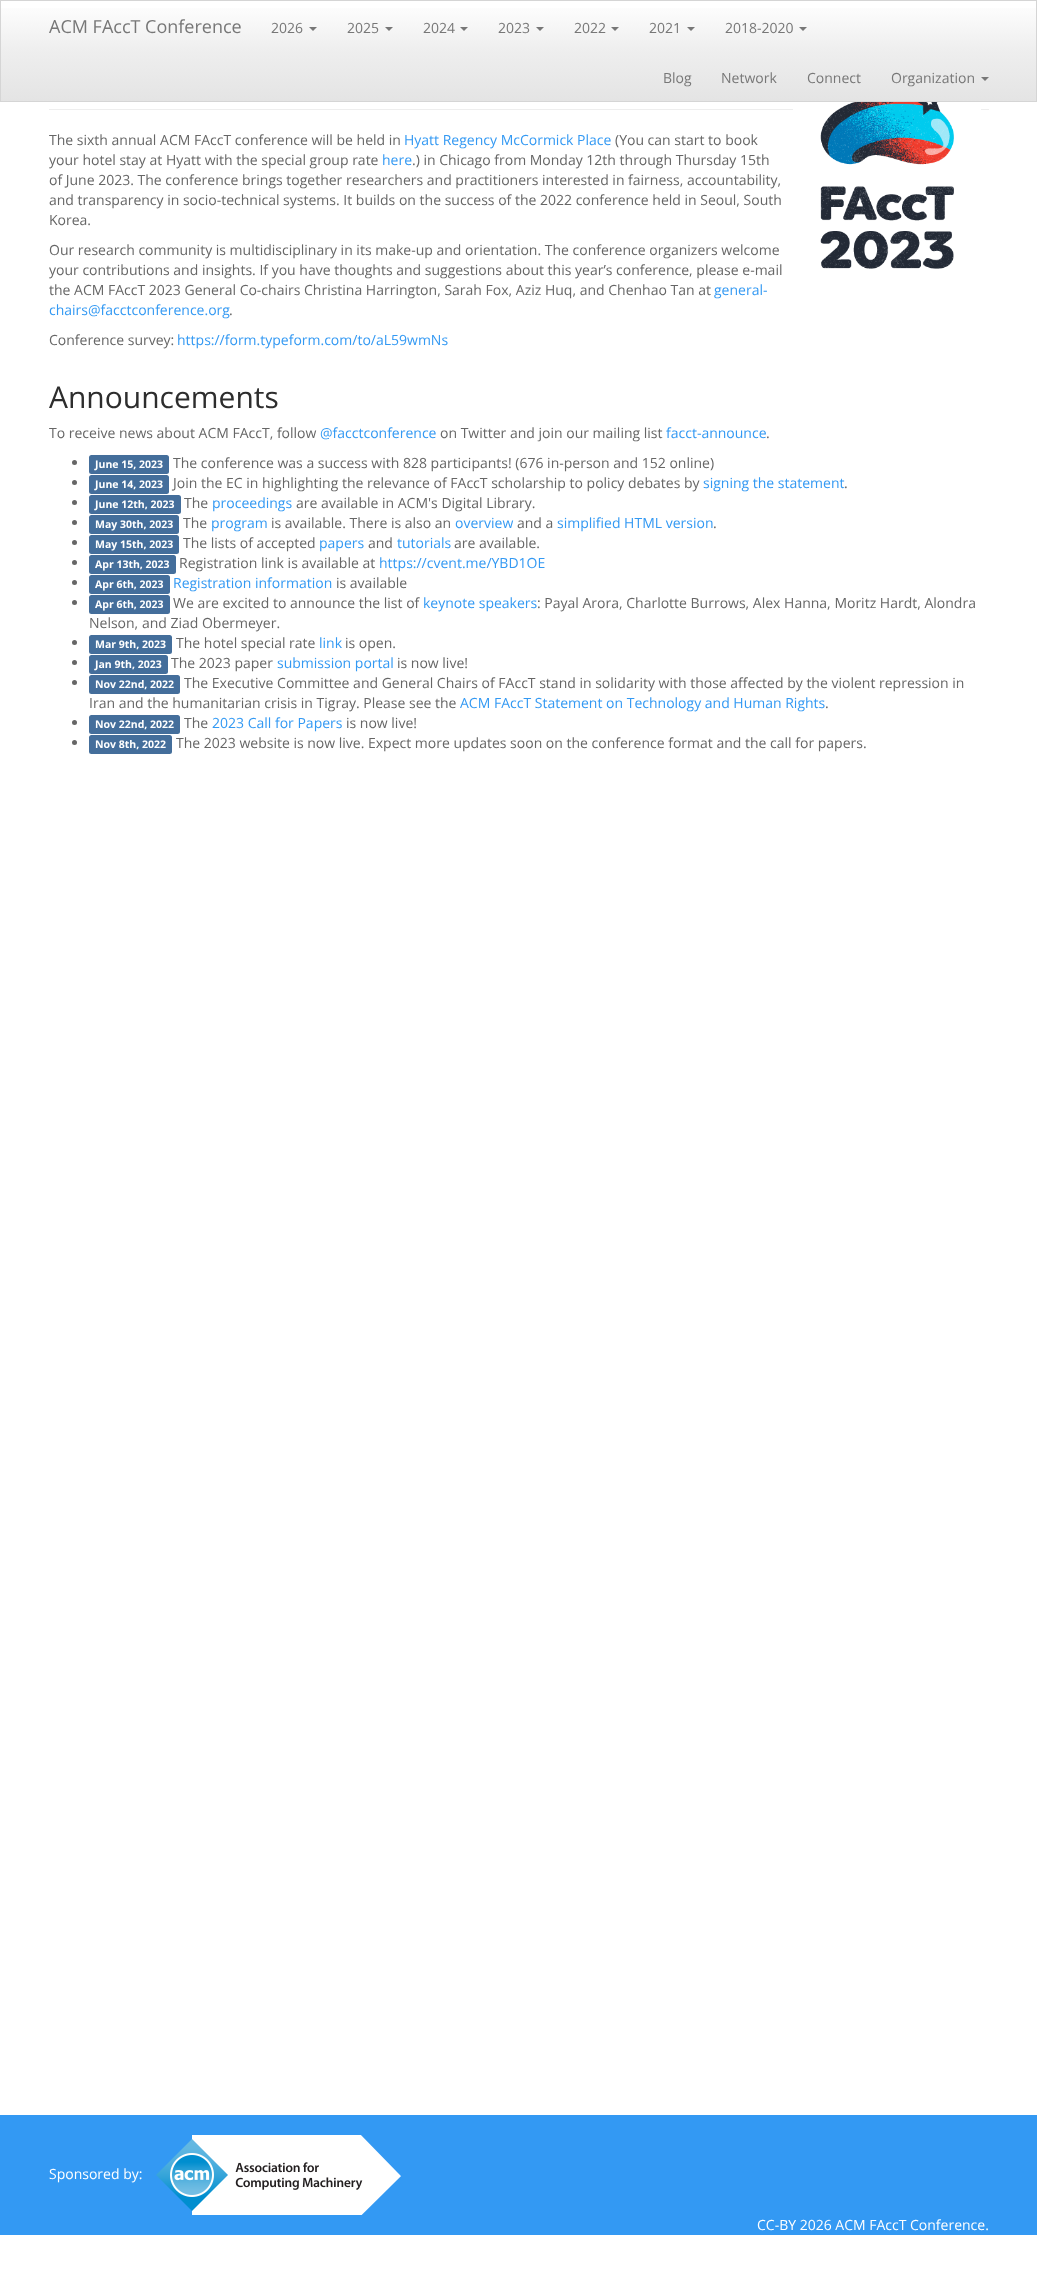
<!DOCTYPE html>
<meta charset="utf-8">
<style>body { margin: 0 } canvas { display: block }</style>
<canvas id="canvas" width="1037" height="2275"></canvas>
<img id="img1" src="img_01.png" hidden>
<img id="img2" src="img_02.png" hidden>
<script>
window.onload = function () {
	const canvas = document.getElementById("canvas");
	const ctx = canvas.getContext("2d");
	ctx.miterLimit = 4;
	ctx.fontKerning = "normal";
	function txt(s, x, y) {
		ctx.fillText(s, x, y);
	}
	function fill(x, y, w, h) {
		ctx.fillRect(x, y, w, h);
	}
	function round(x, y, w, h, r) {
		ctx.beginPath();
		ctx.roundRect(x, y, w, h, r);
		ctx.fill();
	}
	function img(id, x, y, w, h) {
		ctx.drawImage(document.getElementById(id), x, y, w, h);
	}
	let gradient;

	ctx.fillStyle = "#FFFFFF";
	fill(0, 0, 1037, 2275);
	gradient = ctx.createLinearGradient(519, 1, 519, 101);
	gradient.addColorStop(0, "#FFFFFF");
	gradient.addColorStop(0.5, "#EEEEEE");
	gradient.addColorStop(1, "#E4E4E4");
	ctx.fillStyle = gradient;
	fill(1, 8, 1035, 93);
	ctx.strokeStyle = "#D5D5D5";
	ctx.strokeRect(0.5, 0.5, 1036, 101);
	ctx.fillStyle = "#777777";
	ctx.beginPath();
	ctx.moveTo(309, 27);
	ctx.lineTo(317, 27);
	ctx.lineTo(313, 31);
	ctx.closePath();
	ctx.fill();
	ctx.beginPath();
	ctx.moveTo(385, 27);
	ctx.lineTo(393, 27);
	ctx.lineTo(389, 31);
	ctx.closePath();
	ctx.fill();
	ctx.beginPath();
	ctx.moveTo(460, 27);
	ctx.lineTo(468, 27);
	ctx.lineTo(464, 31);
	ctx.closePath();
	ctx.fill();
	ctx.beginPath();
	ctx.moveTo(536, 27);
	ctx.lineTo(544, 27);
	ctx.lineTo(540, 31);
	ctx.closePath();
	ctx.fill();
	ctx.beginPath();
	ctx.moveTo(611, 27);
	ctx.lineTo(619, 27);
	ctx.lineTo(615, 31);
	ctx.closePath();
	ctx.fill();
	ctx.beginPath();
	ctx.moveTo(687, 27);
	ctx.lineTo(695, 27);
	ctx.lineTo(691, 31);
	ctx.closePath();
	ctx.fill();
	ctx.beginPath();
	ctx.moveTo(799, 27);
	ctx.lineTo(807, 27);
	ctx.lineTo(803, 31);
	ctx.closePath();
	ctx.fill();
	ctx.beginPath();
	ctx.moveTo(981, 77);
	ctx.lineTo(989, 77);
	ctx.lineTo(985, 81);
	ctx.closePath();
	ctx.fill();
	ctx.fillStyle = "#EEEEEE";
	fill(49, 109, 940, 1);
	img("img1", 793, 102, 188, 167);
	ctx.fillStyle = "#666666";
	ctx.beginPath();
	ctx.arc(74.5, 462.5, 2.5, 0, Math.PI * 2);
	ctx.fill();
	ctx.fillStyle = "#446E9B";
	round(89, 455, 80, 19, 2.5);
	ctx.fillStyle = "#666666";
	ctx.beginPath();
	ctx.arc(74.5, 482.5, 2.5, 0, Math.PI * 2);
	ctx.fill();
	ctx.fillStyle = "#446E9B";
	round(89, 475, 80, 19, 2.5);
	ctx.fillStyle = "#666666";
	ctx.beginPath();
	ctx.arc(74.5, 502.5, 2.5, 0, Math.PI * 2);
	ctx.fill();
	ctx.fillStyle = "#446E9B";
	round(89, 495, 92, 19, 2.5);
	ctx.fillStyle = "#666666";
	ctx.beginPath();
	ctx.arc(74.5, 522.5, 2.5, 0, Math.PI * 2);
	ctx.fill();
	ctx.fillStyle = "#446E9B";
	round(89, 515, 90, 19, 2.5);
	ctx.fillStyle = "#666666";
	ctx.beginPath();
	ctx.arc(74.5, 542.5, 2.5, 0, Math.PI * 2);
	ctx.fill();
	ctx.fillStyle = "#446E9B";
	round(89, 535, 90, 19, 2.5);
	ctx.fillStyle = "#666666";
	ctx.beginPath();
	ctx.arc(74.5, 562.5, 2.5, 0, Math.PI * 2);
	ctx.fill();
	ctx.fillStyle = "#446E9B";
	round(89, 555, 87, 19, 2.5);
	ctx.fillStyle = "#666666";
	ctx.beginPath();
	ctx.arc(74.5, 582.5, 2.5, 0, Math.PI * 2);
	ctx.fill();
	ctx.fillStyle = "#446E9B";
	round(89, 575, 81, 19, 2.5);
	ctx.fillStyle = "#666666";
	ctx.beginPath();
	ctx.arc(74.5, 602.5, 2.5, 0, Math.PI * 2);
	ctx.fill();
	ctx.fillStyle = "#446E9B";
	round(89, 595, 81, 19, 2.5);
	ctx.fillStyle = "#666666";
	ctx.beginPath();
	ctx.arc(74.5, 642.5, 2.5, 0, Math.PI * 2);
	ctx.fill();
	ctx.fillStyle = "#446E9B";
	round(89, 635, 83, 19, 2.5);
	ctx.fillStyle = "#666666";
	ctx.beginPath();
	ctx.arc(74.5, 662.5, 2.5, 0, Math.PI * 2);
	ctx.fill();
	ctx.fillStyle = "#446E9B";
	round(89, 655, 79, 19, 2.5);
	ctx.fillStyle = "#666666";
	ctx.beginPath();
	ctx.arc(74.5, 682.5, 2.5, 0, Math.PI * 2);
	ctx.fill();
	ctx.fillStyle = "#446E9B";
	round(89, 675, 91, 19, 2.5);
	ctx.fillStyle = "#666666";
	ctx.beginPath();
	ctx.arc(74.5, 722.5, 2.5, 0, Math.PI * 2);
	ctx.fill();
	ctx.fillStyle = "#446E9B";
	round(89, 715, 91, 19, 2.5);
	ctx.fillStyle = "#666666";
	ctx.beginPath();
	ctx.arc(74.5, 742.5, 2.5, 0, Math.PI * 2);
	ctx.fill();
	ctx.fillStyle = "#446E9B";
	round(89, 735, 83, 19, 2.5);
	ctx.fillStyle = "#3399F3";
	fill(0, 2115, 1037, 120);
	img("img2", 156, 2135, 245, 80);
	ctx.font = "18px Open Sans";
	ctx.fillStyle = "#777777";
	txt("ACM FAccT Conference", 49, 33);
	ctx.font = "14px Open Sans";
	txt("2026", 271, 33);
	txt("2025", 347, 33);
	txt("2024", 423, 33);
	txt("2023", 498, 33);
	txt("2022", 574, 33);
	txt("2021", 649, 33);
	txt("2018-2020", 725, 33);
	txt("Blog", 663, 83);
	txt("Network", 721, 83);
	txt("Connect", 807, 83);
	txt("Organization", 891, 83);
	ctx.fillStyle = "#666666";
	txt("The sixth annual ACM FAccT conference will be held in", 49, 145);
	ctx.fillStyle = "#3399F3";
	txt("Hyatt Regency McCormick Place", 404, 145);
	ctx.fillStyle = "#666666";
	txt("(You can start to book", 615, 145);
	txt("your hotel stay at Hyatt with the special group rate", 49, 165);
	ctx.fillStyle = "#3399F3";
	txt("here", 382, 165);
	ctx.fillStyle = "#666666";
	txt(".) in Chicago from Monday 12th through Thursday 15th", 412, 165);
	txt("of June 2023. The conference brings together researchers and practitioners interested in fairness, accountability,", 49, 185);
	txt("and transparency in socio-technical systems. It builds on the success of the 2022 conference held in Seoul, South", 49, 205);
	txt("Korea.", 49, 225);
	txt("Our research community is multidisciplinary in its make-up and orientation. The conference organizers welcome", 49, 255);
	txt("your contributions and insights. If you have thoughts and suggestions about this year’s conference, please e-mail", 49, 275);
	txt("the ACM FAccT 2023 General Co-chairs Christina Harrington, Sarah Fox, Aziz Huq, and Chenhao Tan at", 49, 295);
	ctx.fillStyle = "#3399F3";
	txt("general-", 714, 295);
	txt("chairs@facctconference.org", 49, 315);
	ctx.fillStyle = "#666666";
	txt(".", 229, 315);
	txt("Conference survey:", 49, 345);
	ctx.fillStyle = "#3399F3";
	txt("https://form.typeform.com/to/aL59wmNs", 177, 345);
	ctx.font = "30px Open Sans";
	ctx.fillStyle = "#2D2D2D";
	txt("Announcements", 49, 408);
	ctx.font = "14px Open Sans";
	ctx.fillStyle = "#666666";
	txt("To receive news about ACM FAccT, follow", 49, 438);
	ctx.fillStyle = "#3399F3";
	txt("@facctconference", 320, 438);
	ctx.fillStyle = "#666666";
	txt("on Twitter and join our mailing list", 440, 438);
	ctx.fillStyle = "#3399F3";
	txt("facct-announce", 666, 438);
	ctx.fillStyle = "#666666";
	txt(".", 766, 438);
	ctx.font = "bold 10.5px Open Sans";
	ctx.fillStyle = "#FFFFFF";
	txt("June 15, 2023", 95, 468);
	ctx.font = "14px Open Sans";
	ctx.fillStyle = "#666666";
	txt("The conference was a success with 828 participants! (676 in-person and 152 online)", 173, 468);
	ctx.font = "bold 10.5px Open Sans";
	ctx.fillStyle = "#FFFFFF";
	txt("June 14, 2023", 95, 488);
	ctx.font = "14px Open Sans";
	ctx.fillStyle = "#666666";
	txt("Join the EC in highlighting the relevance of FAccT scholarship to policy debates by", 173, 488);
	ctx.fillStyle = "#3399F3";
	txt("signing the statement", 703, 488);
	ctx.fillStyle = "#666666";
	txt(".", 844, 488);
	ctx.font = "bold 10.5px Open Sans";
	ctx.fillStyle = "#FFFFFF";
	txt("June 12th, 2023", 95, 508);
	ctx.font = "14px Open Sans";
	ctx.fillStyle = "#666666";
	txt("The", 184, 508);
	ctx.fillStyle = "#3399F3";
	txt("proceedings", 212, 508);
	ctx.fillStyle = "#666666";
	txt("are available in ACM's Digital Library.", 296, 508);
	ctx.font = "bold 10.5px Open Sans";
	ctx.fillStyle = "#FFFFFF";
	txt("May 30th, 2023", 95, 528);
	ctx.font = "14px Open Sans";
	ctx.fillStyle = "#666666";
	txt("The", 183, 528);
	ctx.fillStyle = "#3399F3";
	txt("program", 211, 528);
	ctx.fillStyle = "#666666";
	txt("is available. There is also an", 271, 528);
	ctx.fillStyle = "#3399F3";
	txt("overview", 455, 528);
	ctx.fillStyle = "#666666";
	txt("and a", 517, 528);
	ctx.fillStyle = "#3399F3";
	txt("simplified HTML version", 557, 528);
	ctx.fillStyle = "#666666";
	txt(".", 713, 528);
	ctx.font = "bold 10.5px Open Sans";
	ctx.fillStyle = "#FFFFFF";
	txt("May 15th, 2023", 95, 548);
	ctx.font = "14px Open Sans";
	ctx.fillStyle = "#666666";
	txt("The lists of accepted", 183, 548);
	ctx.fillStyle = "#3399F3";
	txt("papers", 319, 548);
	ctx.fillStyle = "#666666";
	txt("and", 368, 548);
	ctx.fillStyle = "#3399F3";
	txt("tutorials", 397, 548);
	ctx.fillStyle = "#666666";
	txt("are available.", 454, 548);
	ctx.font = "bold 10.5px Open Sans";
	ctx.fillStyle = "#FFFFFF";
	txt("Apr 13th, 2023", 95, 568);
	ctx.font = "14px Open Sans";
	ctx.fillStyle = "#666666";
	txt("Registration link is available at", 179, 568);
	ctx.fillStyle = "#3399F3";
	txt("https://cvent.me/YBD1OE", 379, 568);
	ctx.font = "bold 10.5px Open Sans";
	ctx.fillStyle = "#FFFFFF";
	txt("Apr 6th, 2023", 95, 588);
	ctx.font = "14px Open Sans";
	ctx.fillStyle = "#3399F3";
	txt("Registration information", 173, 588);
	ctx.fillStyle = "#666666";
	txt("is available", 336, 588);
	ctx.font = "bold 10.5px Open Sans";
	ctx.fillStyle = "#FFFFFF";
	txt("Apr 6th, 2023", 95, 608);
	ctx.font = "14px Open Sans";
	ctx.fillStyle = "#666666";
	txt("We are excited to announce the list of", 173, 608);
	ctx.fillStyle = "#3399F3";
	txt("keynote speakers", 423, 608);
	ctx.fillStyle = "#666666";
	txt(": Payal Arora, Charlotte Burrows, Alex Hanna, Moritz Hardt, Alondra", 537, 608);
	txt("Nelson, and Ziad Obermeyer.", 89, 628);
	ctx.font = "bold 10.5px Open Sans";
	ctx.fillStyle = "#FFFFFF";
	txt("Mar 9th, 2023", 95, 648);
	ctx.font = "14px Open Sans";
	ctx.fillStyle = "#666666";
	txt("The hotel special rate", 176, 648);
	ctx.fillStyle = "#3399F3";
	txt("link", 319, 648);
	ctx.fillStyle = "#666666";
	txt("is open.", 345, 648);
	ctx.font = "bold 10.5px Open Sans";
	ctx.fillStyle = "#FFFFFF";
	txt("Jan 9th, 2023", 95, 668);
	ctx.font = "14px Open Sans";
	ctx.fillStyle = "#666666";
	txt("The 2023 paper", 171, 668);
	ctx.fillStyle = "#3399F3";
	txt("submission portal", 277, 668);
	ctx.fillStyle = "#666666";
	txt("is now live!", 397, 668);
	ctx.font = "bold 10.5px Open Sans";
	ctx.fillStyle = "#FFFFFF";
	txt("Nov 22nd, 2022", 95, 688);
	ctx.font = "14px Open Sans";
	ctx.fillStyle = "#666666";
	txt("The Executive Committee and General Chairs of FAccT stand in solidarity with those affected by the violent repression in", 184, 688);
	txt("Iran and the humanitarian crisis in Tigray. Please see the", 89, 708);
	ctx.fillStyle = "#3399F3";
	txt("ACM FAccT Statement on Technology and Human Rights", 460, 708);
	ctx.fillStyle = "#666666";
	txt(".", 825, 708);
	ctx.font = "bold 10.5px Open Sans";
	ctx.fillStyle = "#FFFFFF";
	txt("Nov 22nd, 2022", 95, 728);
	ctx.font = "14px Open Sans";
	ctx.fillStyle = "#666666";
	txt("The", 184, 728);
	ctx.fillStyle = "#3399F3";
	txt("2023 Call for Papers", 212, 728);
	ctx.fillStyle = "#666666";
	txt("is now live!", 346, 728);
	ctx.font = "bold 10.5px Open Sans";
	ctx.fillStyle = "#FFFFFF";
	txt("Nov 8th, 2022", 95, 748);
	ctx.font = "14px Open Sans";
	ctx.fillStyle = "#666666";
	txt("The 2023 website is now live. Expect more updates soon on the conference format and the call for papers.", 176, 748);
	ctx.fillStyle = "#FFFFFF";
	txt("Sponsored by:", 49, 2179);
	txt("CC-BY 2026 ACM FAccT Conference.", 757, 2230);
};
</script>
